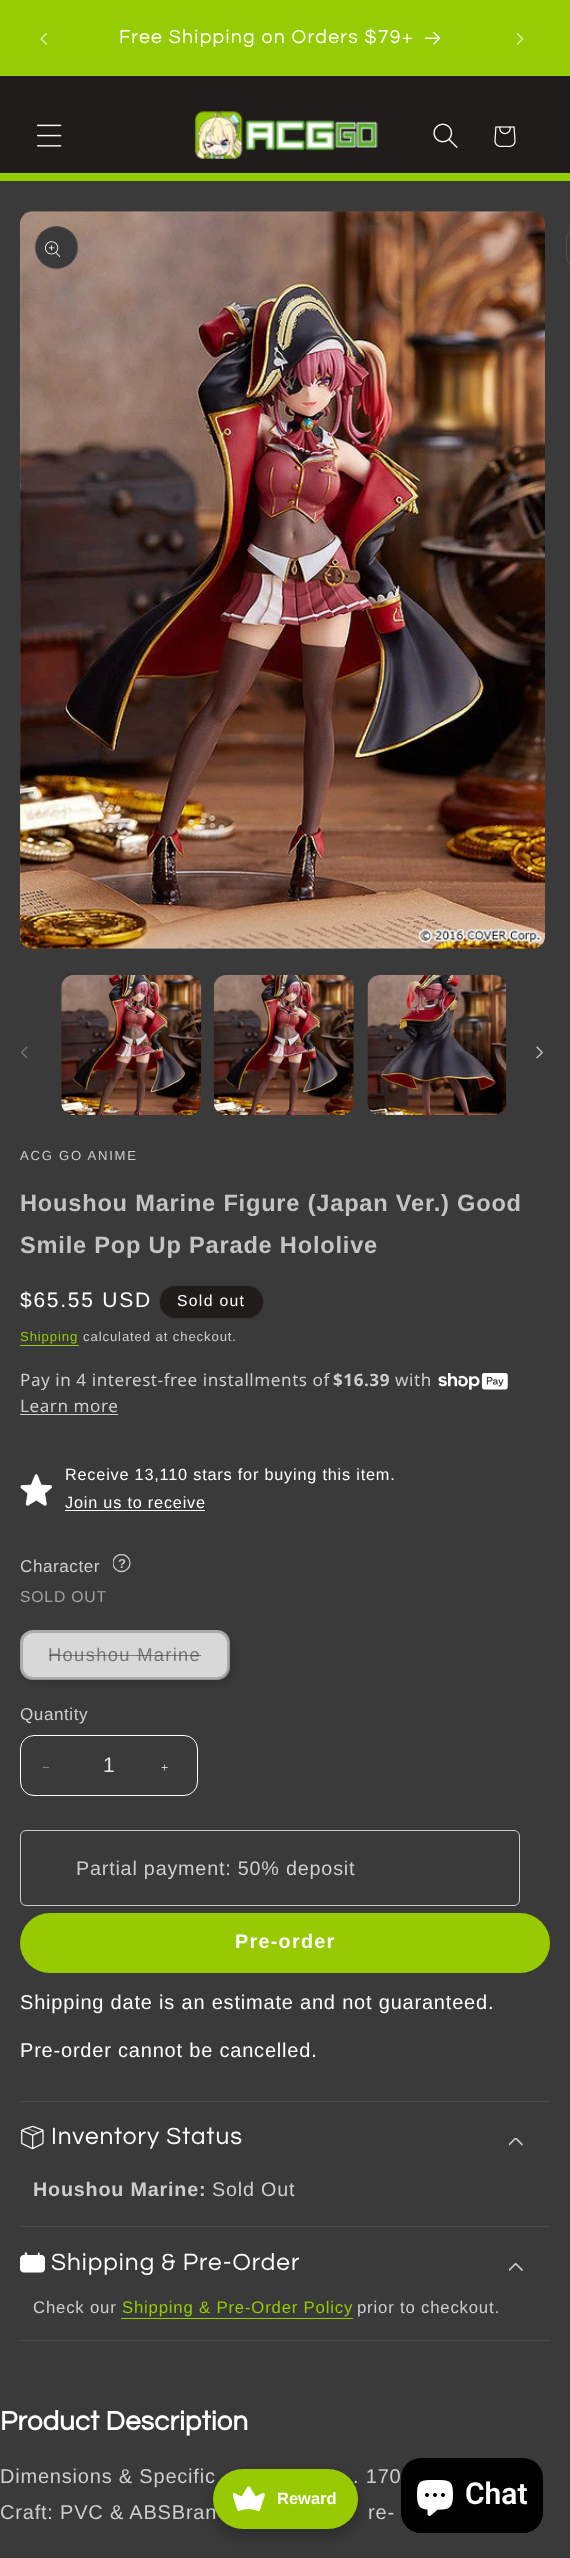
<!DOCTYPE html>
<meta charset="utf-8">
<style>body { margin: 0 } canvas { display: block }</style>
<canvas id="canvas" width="570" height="2558"></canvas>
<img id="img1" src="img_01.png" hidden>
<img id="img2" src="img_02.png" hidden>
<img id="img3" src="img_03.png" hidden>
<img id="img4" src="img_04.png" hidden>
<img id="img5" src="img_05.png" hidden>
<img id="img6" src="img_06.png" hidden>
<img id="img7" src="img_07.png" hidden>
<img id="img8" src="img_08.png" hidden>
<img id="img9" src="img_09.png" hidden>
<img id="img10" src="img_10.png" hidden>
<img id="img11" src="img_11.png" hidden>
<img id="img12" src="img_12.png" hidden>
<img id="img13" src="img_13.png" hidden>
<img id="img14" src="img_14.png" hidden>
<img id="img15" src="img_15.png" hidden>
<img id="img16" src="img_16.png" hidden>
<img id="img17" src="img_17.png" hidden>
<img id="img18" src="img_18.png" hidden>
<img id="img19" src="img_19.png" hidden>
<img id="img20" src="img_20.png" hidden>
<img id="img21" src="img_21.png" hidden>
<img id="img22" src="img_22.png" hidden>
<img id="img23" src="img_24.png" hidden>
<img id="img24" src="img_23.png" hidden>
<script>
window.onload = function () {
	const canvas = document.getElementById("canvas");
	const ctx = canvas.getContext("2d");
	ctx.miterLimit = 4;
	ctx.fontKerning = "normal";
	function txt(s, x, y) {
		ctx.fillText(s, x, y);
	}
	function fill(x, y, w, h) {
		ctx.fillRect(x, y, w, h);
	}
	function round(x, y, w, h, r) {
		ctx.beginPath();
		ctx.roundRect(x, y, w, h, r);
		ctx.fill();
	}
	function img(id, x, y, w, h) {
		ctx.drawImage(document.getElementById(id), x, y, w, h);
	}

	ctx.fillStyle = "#3A3A3A";
	fill(0, 0, 570, 2558);
	ctx.fillStyle = "#96CC04";
	fill(0, 0, 570, 75);
	ctx.fillStyle = "#9ED018";
	fill(0, 75, 570, 1);
	img("img1", 40, 33, 7, 12);
	img("img2", 425, 32, 16, 13);
	img("img3", 516, 33, 8, 12);
	ctx.fillStyle = "#201C1C";
	fill(0, 76, 570, 97);
	ctx.fillStyle = "#96CC04";
	fill(0, 173, 570, 8);
	img("img4", 37, 124, 25, 23);
	img("img5", 194, 111, 184, 48);
	img("img6", 433, 123, 25, 25);
	img("img7", 494, 126, 22, 21);
	img("img8", 20, 211, 525, 738);
	ctx.fillStyle = "#3A3A3A";
	ctx.beginPath();
	ctx.arc(56.5, 247.5, 21.5, 0, Math.PI * 2);
	ctx.fill();
	ctx.beginPath();
	ctx.arc(56.5, 247.5, 21, 0, Math.PI * 2);
	ctx.strokeStyle = "rgba(255, 255, 255, 0.1)";
	ctx.stroke();
	img("img9", 45, 241, 16, 16);
	ctx.beginPath();
	ctx.roundRect(566.5, 226.5, 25, 42, 20.5);
	ctx.strokeStyle = "#4E4E4E";
	ctx.stroke();
	img("img10", 21, 1046, 7, 13);
	img("img11", 61, 975, 141, 140);
	img("img12", 213, 975, 141, 140);
	img("img13", 367, 975, 140, 140);
	img("img14", 536, 1046, 7, 13);
	ctx.fillStyle = "#201C1C";
	round(159, 1285, 105, 34, 17);
	ctx.beginPath();
	ctx.roundRect(159.5, 1285.5, 104, 33, 16.5);
	ctx.strokeStyle = "rgba(255, 255, 255, 0.1)";
	ctx.stroke();
	ctx.fillStyle = "#97CA01";
	fill(20, 1345, 59, 1);
	img("img15", 438, 1373, 70, 17);
	ctx.fillStyle = "#CECECE";
	fill(20, 1414, 98, 1);
	img("img16", 20, 1474, 32, 32);
	ctx.fillStyle = "#FFFFFF";
	fill(65, 1510, 140, 1);
	ctx.save();
	ctx.beginPath();
	ctx.rect(113, 1554, 18, 19);
	ctx.clip();
	ctx.beginPath();
	ctx.arc(121.5, 1563, 8.5, 0, Math.PI * 2);
	ctx.strokeStyle = "#C4C4C4";
	ctx.lineWidth = 1.3;
	ctx.stroke();
	ctx.restore();
	ctx.fillStyle = "#D8D8D8";
	ctx.beginPath();
	ctx.roundRect(21.5, 1631.5, 207, 47, 11.5);
	ctx.fill();
	ctx.strokeStyle = "#ACACAC";
	ctx.lineWidth = 3;
	ctx.stroke();
	ctx.save();
	ctx.beginPath();
	ctx.moveTo(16, 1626);
	ctx.lineTo(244, 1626);
	ctx.lineTo(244, 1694);
	ctx.lineTo(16, 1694);
	ctx.closePath();
	ctx.moveTo(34, 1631);
	ctx.lineTo(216, 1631);
	ctx.bezierCurveTo(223, 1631, 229, 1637, 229, 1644);
	ctx.lineTo(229, 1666);
	ctx.bezierCurveTo(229, 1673, 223, 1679, 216, 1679);
	ctx.lineTo(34, 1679);
	ctx.bezierCurveTo(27, 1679, 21, 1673, 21, 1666);
	ctx.lineTo(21, 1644);
	ctx.bezierCurveTo(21, 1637, 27, 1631, 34, 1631);
	ctx.closePath();
	ctx.clip("evenodd");
	ctx.fillStyle = "rgba(26, 26, 26, 0.2)";
	ctx.filter = "blur(3px)";
	ctx.beginPath();
	ctx.roundRect(26, 1636, 208, 48, 13);
	ctx.fill();
	ctx.filter = "none";
	ctx.restore();
	img("img17", 43, 1767, 6, 1);
	img("img18", 161, 1764, 7, 7);
	ctx.beginPath();
	ctx.roundRect(20.5, 1735.5, 177, 60, 13.5);
	ctx.strokeStyle = "#FFFFFF";
	ctx.lineWidth = 1;
	ctx.stroke();
	ctx.beginPath();
	ctx.roundRect(20.5, 1830.5, 499, 75, 5.5);
	ctx.strokeStyle = "#CCCCCC";
	ctx.stroke();
	ctx.fillStyle = "#97CA01";
	round(20, 1913, 530, 60, 30);
	ctx.fillStyle = "#4A4A4A";
	fill(20, 2101, 530, 1);
	fill(20, 2226, 530, 1);
	img("img19", 21, 2125, 23, 25);
	img("img20", 509, 2138, 14, 8);
	fill(20, 2340, 530, 1);
	img("img21", 20, 2252, 25, 21);
	img("img22", 509, 2263, 14, 8);
	ctx.fillStyle = "#97CA01";
	fill(121, 2318, 232, 1);
	ctx.fillStyle = "rgba(0, 0, 0, 0.25)";
	ctx.filter = "blur(7.5px)";
	ctx.beginPath();
	ctx.roundRect(213, 2476, 145, 60, 30);
	ctx.fill();
	ctx.filter = "none";
	ctx.fillStyle = "#000000";
	round(401, 2458, 142, 75, 20);
	img("img23", 417, 2480, 36, 36);
	ctx.letterSpacing = "1.3px";
	ctx.font = "19.5px Questrial";
	ctx.fillStyle = "#FFFFFF";
	txt("Free Shipping on Orders $79+", 119, 43);
	ctx.letterSpacing = "1.75px";
	ctx.font = "13.1px Liberation Sans";
	ctx.fillStyle = "#CECECE";
	txt("ACG GO ANIME", 20, 1160);
	ctx.letterSpacing = "0.8px";
	ctx.font = "bold 23.6px Liberation Sans";
	ctx.fillStyle = "#C4C4C4";
	txt("Houshou Marine Figure (Japan Ver.) Good", 20, 1211);
	txt("Smile Pop Up Parade Hololive", 20, 1253);
	ctx.letterSpacing = "1.75px";
	ctx.font = "21px Liberation Sans";
	ctx.fillStyle = "#FFFFFF";
	txt("$65.55 USD", 20, 1307);
	ctx.letterSpacing = "1.3px";
	ctx.font = "15.75px Liberation Sans";
	txt("Sold out", 177, 1306);
	ctx.letterSpacing = "0.9px";
	ctx.font = "13.1px Liberation Sans";
	ctx.fillStyle = "#97CA01";
	txt("Shipping", 20, 1341);
	ctx.fillStyle = "#CECECE";
	txt("calculated at checkout.", 83, 1341);
	ctx.letterSpacing = "0.55px";
	ctx.font = "17.1px Noto Sans";
	txt("Pay in 4 interest-free installments of", 20, 1386);
	ctx.font = "bold 17.1px Noto Sans";
	txt("$16.39", 333, 1386);
	ctx.font = "17.1px Noto Sans";
	txt("with", 395, 1386);
	txt("Learn more", 20, 1412);
	ctx.letterSpacing = "0.8px";
	ctx.font = "16.25px Liberation Sans";
	ctx.fillStyle = "#FFFFFF";
	txt("Receive 13,110 stars for buying this item.", 65, 1480);
	txt("Join us to receive", 65, 1508);
	ctx.letterSpacing = "0.55px";
	ctx.font = "17.1px Liberation Sans";
	ctx.fillStyle = "#CECECE";
	txt("Character", 20, 1572);
	ctx.letterSpacing = "0px";
	ctx.font = "bold 13px Liberation Sans";
	ctx.fillStyle = "#C4C4C4";
	txt("?", 118, 1568);
	ctx.letterSpacing = "0.8px";
	ctx.font = "15.75px Liberation Sans";
	ctx.fillStyle = "#A2A2A2";
	txt("SOLD OUT", 20, 1602);
	ctx.letterSpacing = "1.3px";
	ctx.font = "18.4px Liberation Sans";
	ctx.fillStyle = "#797979";
	txt("Houshou Marine", 48, 1661);
	ctx.fillStyle = "rgba(58, 58, 58, 0.6)";
	fill(49, 1655, 152, 1);
	ctx.letterSpacing = "0.55px";
	ctx.font = "17.1px Liberation Sans";
	ctx.fillStyle = "#CECECE";
	txt("Quantity", 20, 1720);
	ctx.letterSpacing = "0px";
	ctx.font = "21px Liberation Sans";
	ctx.fillStyle = "#E1E1E1";
	txt("1", 103, 1772);
	ctx.letterSpacing = "0.8px";
	ctx.font = "19.75px Liberation Sans";
	ctx.fillStyle = "#CECECE";
	txt("Partial payment: 50% deposit", 76, 1875);
	ctx.letterSpacing = "1.3px";
	ctx.font = "bold 19.75px Liberation Sans";
	ctx.fillStyle = "#FFFFFF";
	txt("Pre-order", 235, 1948);
	ctx.letterSpacing = "0.8px";
	ctx.font = "20px Liberation Sans";
	txt("Shipping date is an estimate and not guaranteed.", 20, 2009);
	txt("Pre-order cannot be cancelled.", 20, 2057);
	ctx.letterSpacing = "1px";
	ctx.font = "24.4px Questrial";
	txt("Inventory Status", 51, 2144);
	ctx.letterSpacing = "0.8px";
	ctx.font = "bold 19.75px Liberation Sans";
	ctx.fillStyle = "#CECECE";
	txt("Houshou Marine:", 33, 2196);
	ctx.font = "19.75px Liberation Sans";
	txt("Sold Out", 212, 2196);
	ctx.letterSpacing = "1px";
	ctx.font = "24.4px Questrial";
	ctx.fillStyle = "#FFFFFF";
	txt("Shipping & Pre-Order", 51, 2270);
	ctx.letterSpacing = "0.8px";
	ctx.font = "16.75px Liberation Sans";
	ctx.fillStyle = "#CECECE";
	txt("Check our", 33, 2313);
	ctx.fillStyle = "#97CA01";
	txt("Shipping & Pre-Order Policy", 122, 2313);
	ctx.fillStyle = "#CECECE";
	txt("prior to checkout.", 357, 2313);
	ctx.letterSpacing = "0.25px";
	ctx.font = "bold 27.5px Questrial";
	ctx.fillStyle = "#FFFFFF";
	txt("Product Description", 0, 2430);
	ctx.letterSpacing = "0.8px";
	ctx.font = "20px Liberation Sans";
	ctx.fillStyle = "#CECECE";
	txt("Dimensions & Specific", 0, 2483);
	txt(". 170", 353, 2483);
	txt("Craft: PVC & ABSBran", 0, 2519);
	txt("re-", 368, 2519);
	ctx.fillStyle = "#97CA01";
	round(213, 2469, 145, 60, 30);
	img("img24", 233, 2486, 32, 25);
	ctx.letterSpacing = "0px";
	ctx.font = "bold 16.5px Liberation Sans";
	ctx.fillStyle = "#FFFFFF";
	txt("Reward", 277, 2504);
	ctx.font = "600 30px Roboto";
	txt("Chat", 465, 2504);
};
</script>
